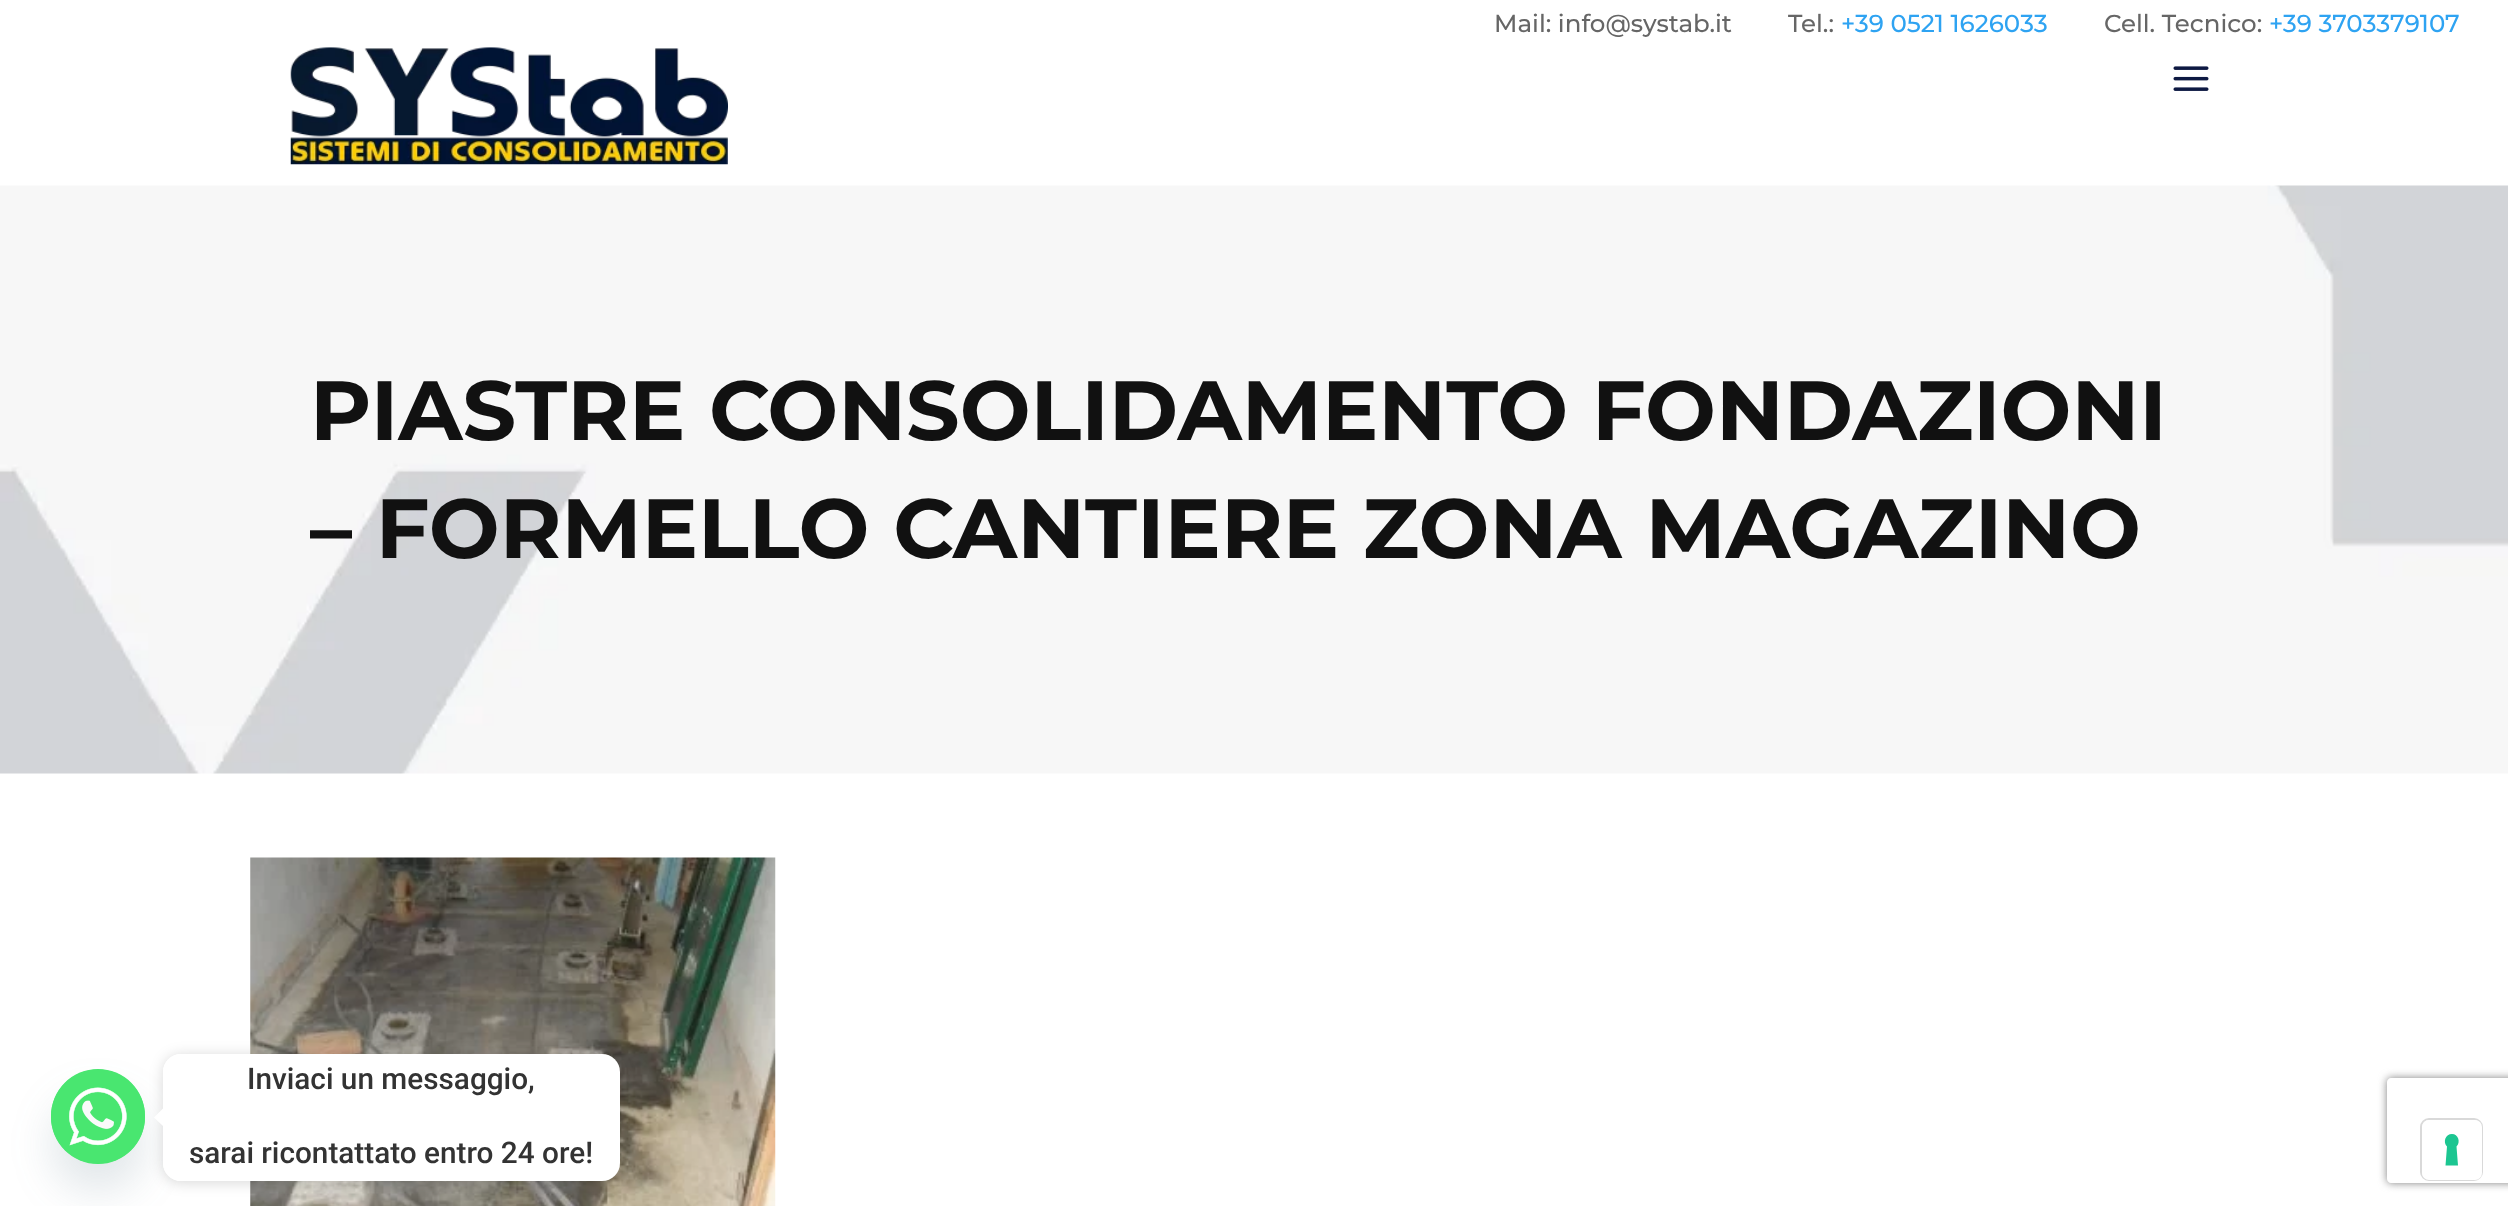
<!DOCTYPE html>
<meta charset="utf-8">
<style>body { margin: 0 } canvas { display: block }</style>
<canvas id="canvas" width="2508" height="1206"></canvas>
<img id="img1" src="img_01.png" hidden>
<img id="img2" src="img_02.png" hidden>
<img id="img3" src="img_03.png" hidden>
<img id="img4" src="img_04.png" hidden>
<img id="img5" src="img_05.png" hidden>
<script>
window.onload = function () {
	const canvas = document.getElementById("canvas");
	const ctx = canvas.getContext("2d");
	ctx.miterLimit = 4;
	ctx.fontKerning = "normal";
	function txt(s, x, y) {
		ctx.fillText(s, x, y);
	}
	function fill(x, y, w, h) {
		ctx.fillRect(x, y, w, h);
	}
	function round(x, y, w, h, r) {
		ctx.beginPath();
		ctx.roundRect(x, y, w, h, r);
		ctx.fill();
	}
	function img(id, x, y, w, h) {
		ctx.drawImage(document.getElementById(id), x, y, w, h);
	}

	ctx.fillStyle = "#FFFFFF";
	fill(0, 0, 2508, 1206);
	img("img1", 290, 47, 438, 118);
	img("img2", 2173, 66, 36, 25);
	img("img3", 0, 185, 2508, 589);
	img("img4", 250, 857, 526, 349);
	ctx.fillStyle = "rgba(73, 104, 126, 0.16)";
	ctx.filter = "blur(21px)";
	ctx.beginPath();
	ctx.roundRect(51, 1097, 94, 95, 47);
	ctx.fill();
	ctx.filter = "none";
	ctx.fillStyle = "#49E670";
	round(51, 1069, 94, 95, 47);
	img("img5", 51, 1069, 94, 95);
	ctx.save();
	ctx.beginPath();
	ctx.moveTo(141, 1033);
	ctx.lineTo(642, 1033);
	ctx.lineTo(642, 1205);
	ctx.lineTo(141, 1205);
	ctx.closePath();
	ctx.moveTo(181, 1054);
	ctx.lineTo(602, 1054);
	ctx.bezierCurveTo(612, 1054, 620, 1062, 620, 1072);
	ctx.lineTo(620, 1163);
	ctx.bezierCurveTo(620, 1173, 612, 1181, 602, 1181);
	ctx.lineTo(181, 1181);
	ctx.bezierCurveTo(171, 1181, 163, 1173, 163, 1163);
	ctx.lineTo(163, 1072);
	ctx.bezierCurveTo(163, 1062, 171, 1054, 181, 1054);
	ctx.closePath();
	ctx.clip("evenodd");
	ctx.fillStyle = "rgba(0, 0, 0, 0.15)";
	ctx.filter = "blur(7px)";
	ctx.beginPath();
	ctx.roundRect(163, 1055, 457, 128, 18);
	ctx.fill();
	ctx.filter = "none";
	ctx.restore();
	ctx.fillStyle = "#FFFFFF";
	round(163, 1054, 457, 127, 18);
	ctx.beginPath();
	ctx.moveTo(163, 1108.5);
	ctx.lineTo(163, 1126);
	ctx.lineTo(154, 1117.5);
	ctx.closePath();
	ctx.fill();
	ctx.save();
	ctx.beginPath();
	ctx.moveTo(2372, 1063);
	ctx.lineTo(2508, 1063);
	ctx.lineTo(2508, 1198);
	ctx.lineTo(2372, 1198);
	ctx.closePath();
	ctx.moveTo(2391, 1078);
	ctx.lineTo(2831, 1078);
	ctx.bezierCurveTo(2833, 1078, 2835, 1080, 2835, 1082);
	ctx.lineTo(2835, 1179);
	ctx.bezierCurveTo(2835, 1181, 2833, 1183, 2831, 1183);
	ctx.lineTo(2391, 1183);
	ctx.bezierCurveTo(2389, 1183, 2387, 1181, 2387, 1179);
	ctx.lineTo(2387, 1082);
	ctx.bezierCurveTo(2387, 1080, 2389, 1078, 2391, 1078);
	ctx.closePath();
	ctx.clip("evenodd");
	ctx.fillStyle = "#808080";
	ctx.filter = "blur(4.5px)";
	ctx.beginPath();
	ctx.roundRect(2387, 1078, 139, 105, 4);
	ctx.fill();
	ctx.filter = "none";
	ctx.restore();
	ctx.beginPath();
	ctx.roundRect(2421, 1119, 61, 61, 8);
	ctx.strokeStyle = "#D9D9D9";
	ctx.lineWidth = 2;
	ctx.stroke();
	round(2422, 1120, 60, 60, 7);
	ctx.fillStyle = "#1CC691";
	ctx.beginPath();
	ctx.moveTo(2452, 1134);
	ctx.bezierCurveTo(2458, 1134, 2461, 1142, 2456.5, 1146.5);
	ctx.lineTo(2458, 1165.5);
	ctx.lineTo(2445.5, 1165.5);
	ctx.lineTo(2447, 1146.5);
	ctx.bezierCurveTo(2442.5, 1142, 2445.5, 1134, 2452, 1134);
	ctx.closePath();
	ctx.fill("evenodd");
	ctx.font = "100 24.5px 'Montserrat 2'";
	ctx.fillStyle = "#666666";
	txt("Mail: info@systab.it", 1494, 32);
	txt("Tel.:", 1788, 32);
	ctx.fillStyle = "#2EA3F2";
	txt("+39 0521 1626033", 1841, 32);
	ctx.fillStyle = "#666666";
	txt("Cell. Tecnico:", 2104, 32);
	ctx.fillStyle = "#2EA3F2";
	txt("+39 3703379107", 2269, 32);
	ctx.font = "100 84px Montserrat";
	ctx.fillStyle = "#111111";
	txt("PIASTRE CONSOLIDAMENTO FONDAZIONI", 310, 440);
	txt("– FORMELLO CANTIERE ZONA MAGAZINO", 310, 558);
	ctx.font = "500 29.75px Roboto";
	ctx.fillStyle = "#333333";
	txt("Inviaci un messaggio,", 247, 1089);
	txt("sarai ricontattato entro 24 ore!", 189, 1163);
};
</script>
